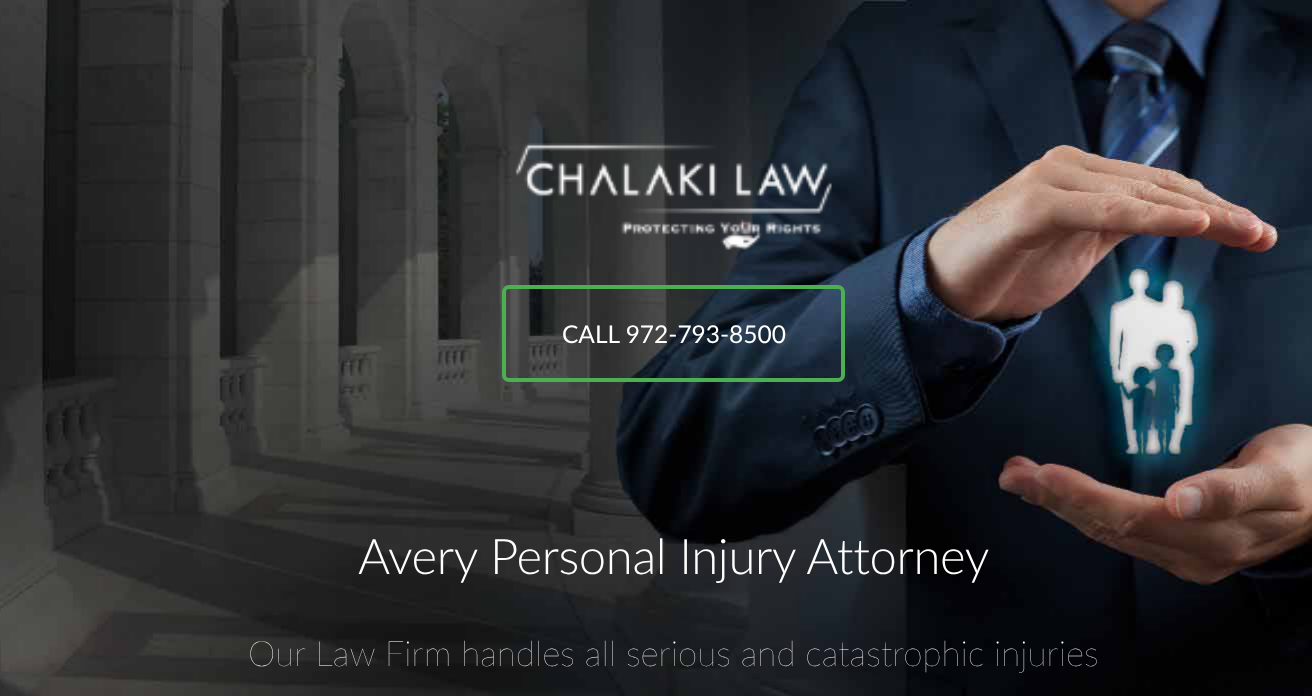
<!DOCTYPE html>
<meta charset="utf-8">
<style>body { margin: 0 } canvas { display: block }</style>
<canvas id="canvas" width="1312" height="696"></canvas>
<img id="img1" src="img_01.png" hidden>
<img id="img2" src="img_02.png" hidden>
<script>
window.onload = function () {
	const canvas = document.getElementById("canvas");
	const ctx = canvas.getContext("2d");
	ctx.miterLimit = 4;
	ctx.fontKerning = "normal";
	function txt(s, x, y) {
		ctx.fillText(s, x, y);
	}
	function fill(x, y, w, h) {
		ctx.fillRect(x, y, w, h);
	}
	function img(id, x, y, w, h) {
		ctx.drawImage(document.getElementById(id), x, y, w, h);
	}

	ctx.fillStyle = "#FFFFFF";
	fill(0, 0, 1312, 696);
	img("img1", 0, 0, 1312, 696);
	img("img2", 515, 143, 317, 107);
	ctx.beginPath();
	ctx.roundRect(504, 287, 339, 93, 5);
	ctx.strokeStyle = "#4CAF50";
	ctx.lineWidth = 4;
	ctx.stroke();
	ctx.font = "24.5px Lato";
	txt("CALL 972-793-8500", 562, 343);
	ctx.letterSpacing = "-0.35px";
	ctx.font = "300 49px Lato";
	txt("Avery", 358, 574);
	txt("Personal Injury Attorney", 490, 574);
	ctx.letterSpacing = "0px";
	ctx.font = "200 35px Lato";
	txt("Our Law Firm handles all serious and catastrophic injuries", 248, 666);
};
</script>
